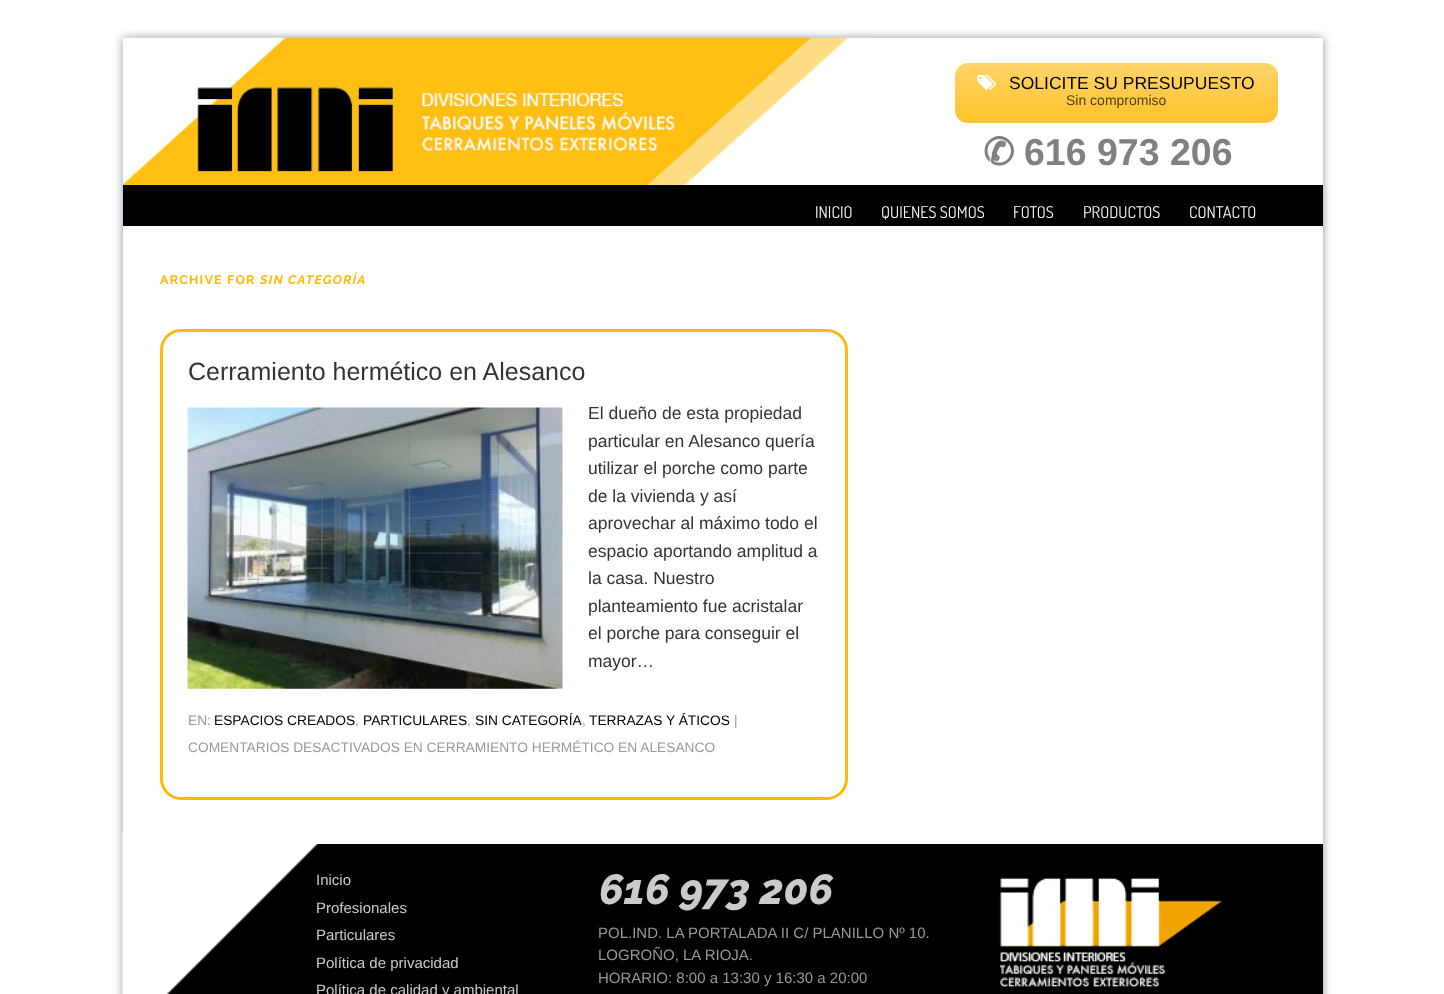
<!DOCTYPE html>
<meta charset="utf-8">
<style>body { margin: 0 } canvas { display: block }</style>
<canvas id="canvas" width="1444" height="994"></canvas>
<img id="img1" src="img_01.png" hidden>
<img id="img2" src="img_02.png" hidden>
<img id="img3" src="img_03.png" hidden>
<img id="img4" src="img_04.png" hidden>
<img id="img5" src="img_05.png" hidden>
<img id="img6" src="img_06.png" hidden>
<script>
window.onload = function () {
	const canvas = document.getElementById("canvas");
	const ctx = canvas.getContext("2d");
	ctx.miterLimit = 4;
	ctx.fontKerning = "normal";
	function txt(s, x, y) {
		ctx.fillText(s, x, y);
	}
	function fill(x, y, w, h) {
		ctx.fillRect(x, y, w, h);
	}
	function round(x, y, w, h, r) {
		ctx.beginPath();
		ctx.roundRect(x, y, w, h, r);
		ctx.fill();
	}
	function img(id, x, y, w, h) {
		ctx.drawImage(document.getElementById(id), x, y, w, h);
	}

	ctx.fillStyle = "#FFFFFF";
	fill(0, 0, 1444, 994);
	ctx.fillStyle = "#8493A6";
	ctx.filter = "blur(5px)";
	ctx.beginPath();
	ctx.rect(123, 38, 1200, 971);
	ctx.fill();
	ctx.filter = "none";
	ctx.fillStyle = "#FFFFFF";
	fill(123, 38, 1200, 793);
	img("img1", 122, 37, 750, 148);
	ctx.fillStyle = "#FFC430";
	round(955, 63, 323, 60, 13);
	img("img2", 955, 63, 323, 53);
	img("img3", 977, 75, 19, 15);
	ctx.fillStyle = "#000000";
	fill(123, 185, 1200, 41);
	ctx.beginPath();
	ctx.roundRect(161.5, 330.5, 685, 468, 19.5);
	ctx.strokeStyle = "#FFB90D";
	ctx.lineWidth = 3;
	ctx.stroke();
	img("img4", 187, 407, 376, 282);
	fill(331, 844, 992, 150);
	img("img5", 122, 831, 209, 163);
	ctx.fillStyle = "#FFFFFF";
	fill(123, 831, 1200, 13);
	img("img6", 999, 877, 223, 110);
	ctx.font = "17.5px Liberation Sans";
	ctx.fillStyle = "#000000";
	txt("SOLICITE SU PRESUPUESTO", 1009, 89);
	ctx.font = "14px Liberation Sans";
	ctx.fillStyle = "#4D3C14";
	txt("Sin compromiso", 1066, 105);
	ctx.font = "bold 37.5px DejaVu Sans";
	ctx.fillStyle = "#808080";
	txt("✆", 983, 165);
	ctx.font = "bold 37.5px Liberation Sans";
	txt("616 973 206", 1024, 165);
	ctx.font = "16.25px Dosis";
	ctx.fillStyle = "#FAFAFA";
	txt("INICIO", 815, 218);
	txt("QUIENES SOMOS", 881, 218);
	txt("FOTOS", 1013, 218);
	txt("PRODUCTOS", 1083, 218);
	txt("CONTACTO", 1189, 218);
	ctx.letterSpacing = "1.25px";
	ctx.font = "bold 12.5px Raleway";
	ctx.fillStyle = "#FFB800";
	txt("ARCHIVE FOR", 160, 284);
	ctx.font = "italic bold 12.5px Raleway";
	txt("SIN CATEGORÍA", 260, 284);
	ctx.letterSpacing = "0px";
	ctx.font = "25px Liberation Sans";
	ctx.fillStyle = "#333333";
	txt("Cerramiento hermético en Alesanco", 188, 380);
	ctx.font = "17.5px Liberation Sans";
	txt("El dueño de esta propiedad", 588, 419);
	txt("particular en Alesanco quería", 588, 447);
	txt("utilizar el porche como parte", 588, 474);
	txt("de la vivienda y así", 588, 502);
	txt("aprovechar al máximo todo el", 588, 529);
	txt("espacio aportando amplitud a", 588, 557);
	txt("la casa. Nuestro", 588, 584);
	txt("planteamiento fue acristalar", 588, 612);
	txt("el porche para conseguir el", 588, 639);
	txt("mayor…", 588, 667);
	ctx.font = "13.75px Liberation Sans";
	ctx.fillStyle = "#999999";
	txt("EN:", 188, 725);
	ctx.fillStyle = "#000000";
	txt("ESPACIOS CREADOS", 214, 725);
	ctx.fillStyle = "#999999";
	txt(",", 355, 725);
	ctx.fillStyle = "#000000";
	txt("PARTICULARES", 363, 725);
	ctx.fillStyle = "#999999";
	txt(",", 467, 725);
	ctx.fillStyle = "#000000";
	txt("SIN CATEGORÍA", 475, 725);
	ctx.fillStyle = "#999999";
	txt(",", 582, 725);
	ctx.fillStyle = "#000000";
	txt("TERRAZAS Y ÁTICOS", 589, 725);
	ctx.fillStyle = "#999999";
	txt("|", 734, 725);
	txt("COMENTARIOS DESACTIVADOS EN CERRAMIENTO HERMÉTICO EN ALESANCO", 188, 752);
	ctx.font = "15px Liberation Sans";
	ctx.fillStyle = "#CBCBCB";
	txt("Inicio", 316, 885);
	txt("Profesionales", 316, 913);
	txt("Particulares", 316, 940);
	txt("Política de privacidad", 316, 968);
	txt("Política de calidad y ambiental", 316, 995);
	ctx.font = "italic 800 42px Raleway";
	txt("616 973 206", 599, 904);
	ctx.font = "15px Liberation Sans";
	ctx.fillStyle = "#999999";
	txt("POL.IND. LA PORTALADA II C/ PLANILLO Nº 10.", 598, 938);
	txt("LOGROÑO, LA RIOJA.", 598, 960);
	txt("HORARIO: 8:00 a 13:30 y 16:30 a 20:00", 598, 983);
};
</script>
